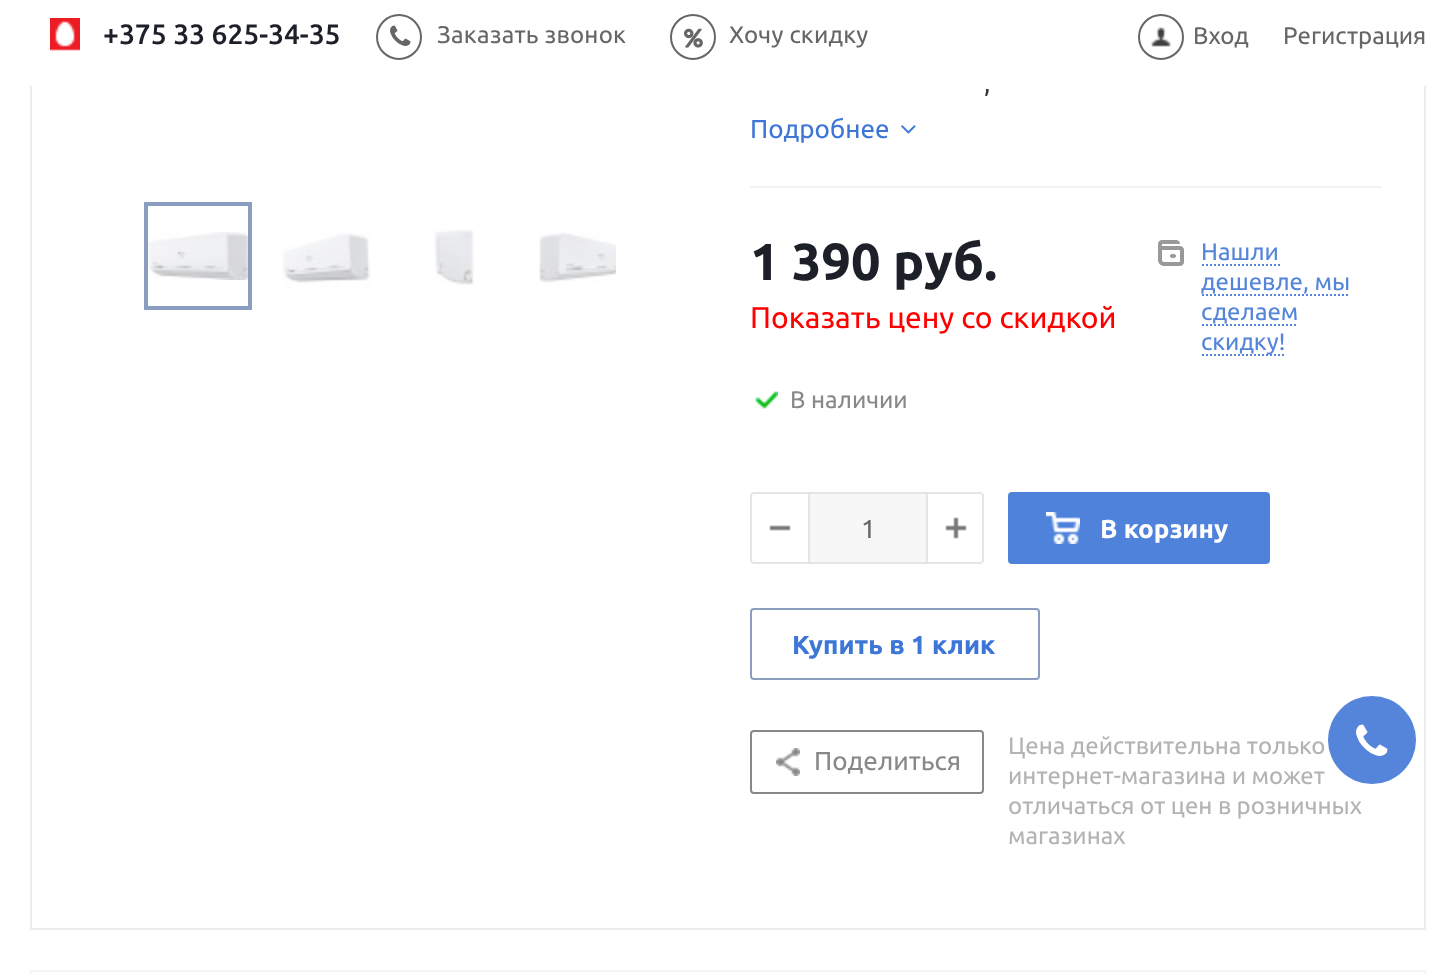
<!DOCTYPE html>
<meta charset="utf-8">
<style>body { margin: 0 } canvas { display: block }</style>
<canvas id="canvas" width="1456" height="974"></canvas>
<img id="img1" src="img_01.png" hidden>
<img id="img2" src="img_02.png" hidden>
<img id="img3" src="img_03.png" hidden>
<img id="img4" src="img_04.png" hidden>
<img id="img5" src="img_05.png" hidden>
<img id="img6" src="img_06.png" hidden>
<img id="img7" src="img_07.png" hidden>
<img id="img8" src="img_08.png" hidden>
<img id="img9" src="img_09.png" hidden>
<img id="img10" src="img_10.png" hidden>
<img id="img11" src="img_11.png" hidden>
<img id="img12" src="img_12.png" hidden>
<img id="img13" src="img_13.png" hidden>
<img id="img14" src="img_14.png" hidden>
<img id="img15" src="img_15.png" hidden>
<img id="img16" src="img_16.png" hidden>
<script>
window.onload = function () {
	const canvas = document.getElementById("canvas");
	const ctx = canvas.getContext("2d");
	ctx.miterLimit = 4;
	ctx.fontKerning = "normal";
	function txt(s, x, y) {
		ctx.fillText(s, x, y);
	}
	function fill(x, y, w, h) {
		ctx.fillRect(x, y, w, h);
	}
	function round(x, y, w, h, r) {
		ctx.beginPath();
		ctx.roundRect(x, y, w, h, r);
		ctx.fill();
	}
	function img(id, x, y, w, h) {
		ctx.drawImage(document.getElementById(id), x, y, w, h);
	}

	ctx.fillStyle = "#FFFFFF";
	fill(0, 0, 1456, 974);
	ctx.strokeStyle = "#EAEBEC";
	ctx.lineWidth = 2;
	ctx.strokeRect(31, -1, 1394, 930);
	fill(30, 0, 1396, 86);
	img("img1", 50, 18, 30, 33);
	ctx.beginPath();
	ctx.arc(399, 37, 22, 0, Math.PI * 2);
	ctx.strokeStyle = "#666666";
	ctx.stroke();
	img("img2", 390, 25, 21, 21);
	ctx.beginPath();
	ctx.arc(693, 37, 22, 0, Math.PI * 2);
	ctx.stroke();
	img("img3", 684, 28, 19, 20);
	img("img4", 1151, 27, 20, 20);
	ctx.beginPath();
	ctx.arc(1161, 37, 22, 0, Math.PI * 2);
	ctx.stroke();
	ctx.strokeStyle = "#8C9EC0";
	ctx.lineWidth = 4;
	ctx.strokeRect(146, 204, 104, 104);
	img("img5", 148, 232, 100, 48);
	img("img6", 282, 233, 89, 55);
	img("img7", 434, 229, 40, 56);
	img("img8", 539, 232, 77, 51);
	ctx.fillStyle = "#F2F2F2";
	fill(750, 186, 632, 2);
	img("img9", 901, 125, 15, 9);
	img("img10", 1158, 240, 26, 26);
	ctx.beginPath();
	ctx.moveTo(1202, 265);
	ctx.lineTo(1280, 265);
	ctx.strokeStyle = "#5485DA";
	ctx.lineWidth = 2;
	ctx.setLineDash([2, 2]);
	ctx.stroke();
	ctx.beginPath();
	ctx.moveTo(1202, 295);
	ctx.lineTo(1350, 295);
	ctx.stroke();
	ctx.beginPath();
	ctx.moveTo(1202, 325);
	ctx.lineTo(1298, 325);
	ctx.stroke();
	ctx.beginPath();
	ctx.moveTo(1202, 355);
	ctx.lineTo(1286, 355);
	ctx.stroke();
	img("img11", 755, 391, 23, 18);
	ctx.beginPath();
	ctx.roundRect(751, 493, 232, 70, 3);
	ctx.strokeStyle = "#E5E5E5";
	ctx.setLineDash([]);
	ctx.stroke();
	img("img12", 769, 525, 22, 6);
	ctx.fillStyle = "#F7F7F7";
	fill(810, 494, 116, 68);
	ctx.fillStyle = "#E5E5E5";
	fill(926, 494, 2, 68);
	fill(808, 494, 2, 68);
	img("img13", 945, 517, 22, 22);
	ctx.fillStyle = "#4F82DA";
	round(1008, 492, 262, 72, 4);
	img("img14", 1046, 512, 34, 32);
	ctx.beginPath();
	ctx.roundRect(751, 609, 288, 70, 3);
	ctx.strokeStyle = "#8C9EC0";
	ctx.stroke();
	ctx.beginPath();
	ctx.roundRect(751, 731, 232, 62, 3);
	ctx.strokeStyle = "#888888";
	ctx.stroke();
	img("img15", 776, 748, 24, 28);
	ctx.strokeStyle = "#F5F5F5";
	ctx.strokeRect(31, 971, 1394, 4);
	ctx.fillStyle = "#5485DA";
	ctx.beginPath();
	ctx.arc(1372, 740, 44, 0, Math.PI * 2);
	ctx.fill();
	img("img16", 1356, 724, 32, 32);
	ctx.font = "500 28px Ubuntu";
	ctx.fillStyle = "#1D2029";
	txt("+375 33 625-34-35", 103, 44);
	ctx.letterSpacing = "0.25px";
	ctx.font = "24px Ubuntu";
	ctx.fillStyle = "#666666";
	txt("Заказать звонок", 437, 43);
	txt("Хочу скидку", 729, 43);
	ctx.letterSpacing = "0px";
	txt("Вход", 1193, 44);
	txt("Регистрация", 1283, 44);
	ctx.font = "26px Ubuntu";
	ctx.fillStyle = "#333333";
	txt(",", 984, 92);
	ctx.fillStyle = "#3E76D7";
	txt("Подробнее", 750, 138);
	ctx.font = "bold 52px Ubuntu";
	ctx.fillStyle = "#1D2029";
	txt("1 390 руб.", 750, 280);
	ctx.font = "30px Ubuntu";
	ctx.fillStyle = "#FF0000";
	txt("Показать цену со скидкой", 750, 328);
	ctx.font = "24px Ubuntu";
	ctx.fillStyle = "#5485DA";
	txt("Нашли", 1201, 260);
	txt("дешевле, мы", 1201, 290);
	txt("сделаем", 1201, 320);
	txt("скидку!", 1201, 350);
	ctx.fillStyle = "#888888";
	txt("В наличии", 790, 408);
	ctx.font = "26px Ubuntu";
	ctx.fillStyle = "#666666";
	txt("1", 861, 538);
	ctx.font = "bold 26px Ubuntu";
	ctx.fillStyle = "#FFFFFF";
	txt("В корзину", 1100, 538);
	ctx.fillStyle = "#3E76D7";
	txt("Купить в 1 клик", 792, 654);
	ctx.font = "26px Ubuntu";
	ctx.fillStyle = "#888888";
	txt("Поделиться", 814, 770);
	ctx.font = "24px Ubuntu";
	ctx.fillStyle = "#B3B3B3";
	txt("Цена действительна только", 1008, 754);
	txt("интернет-магазина и может", 1008, 784);
	txt("отличаться от цен в розничных", 1008, 814);
	txt("магазинах", 1008, 844);
};
</script>
